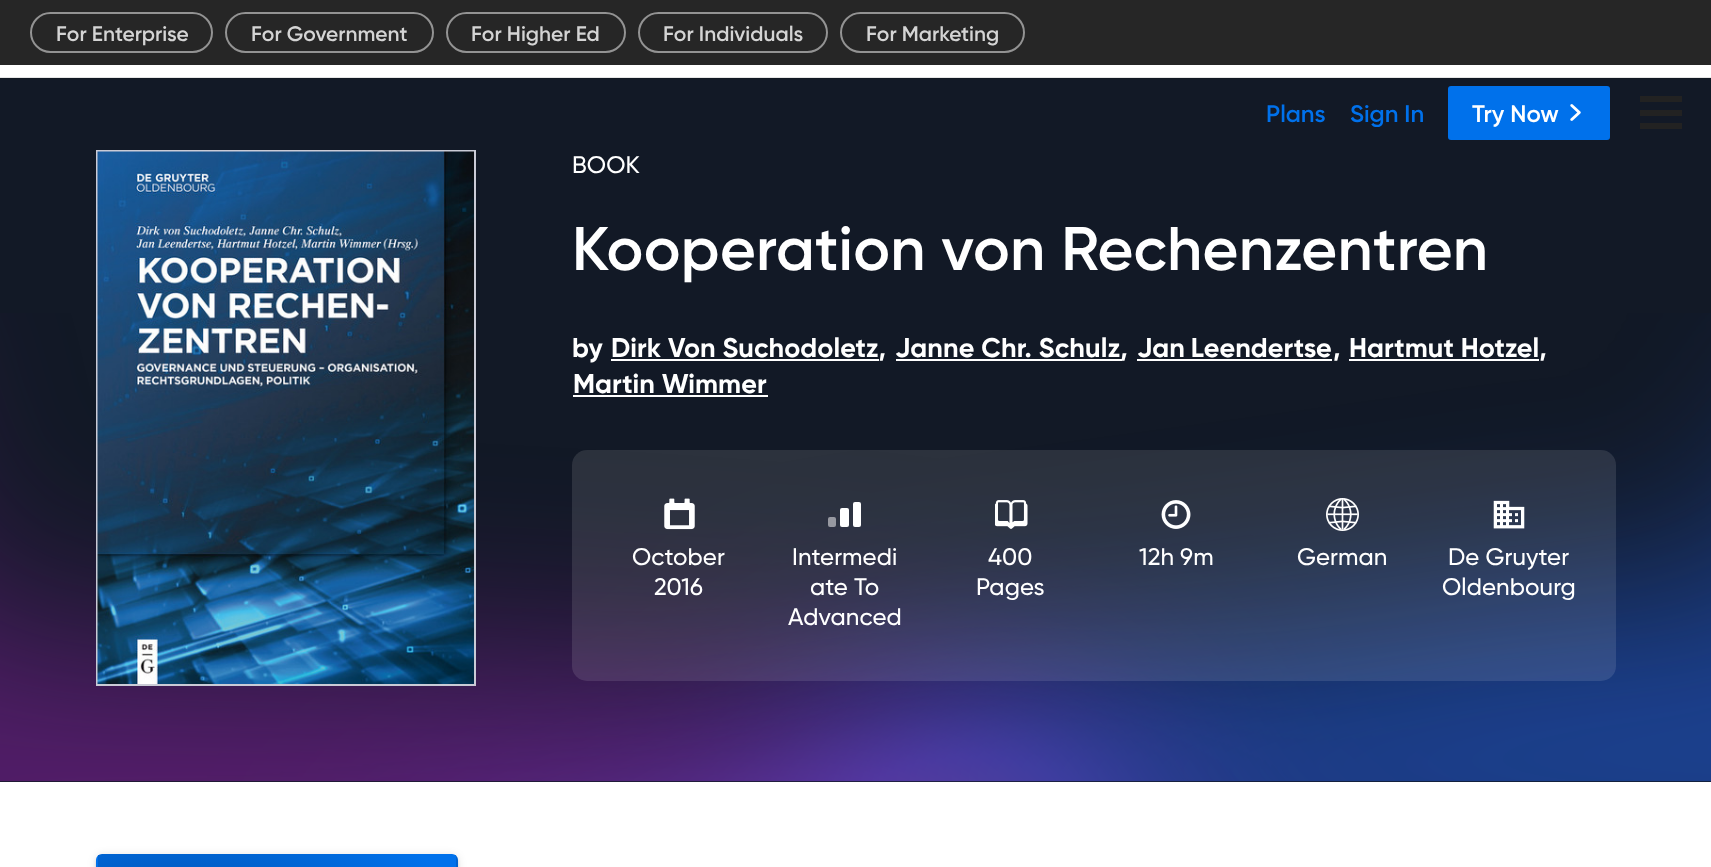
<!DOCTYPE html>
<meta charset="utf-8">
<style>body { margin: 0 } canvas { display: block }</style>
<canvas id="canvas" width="1711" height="867"></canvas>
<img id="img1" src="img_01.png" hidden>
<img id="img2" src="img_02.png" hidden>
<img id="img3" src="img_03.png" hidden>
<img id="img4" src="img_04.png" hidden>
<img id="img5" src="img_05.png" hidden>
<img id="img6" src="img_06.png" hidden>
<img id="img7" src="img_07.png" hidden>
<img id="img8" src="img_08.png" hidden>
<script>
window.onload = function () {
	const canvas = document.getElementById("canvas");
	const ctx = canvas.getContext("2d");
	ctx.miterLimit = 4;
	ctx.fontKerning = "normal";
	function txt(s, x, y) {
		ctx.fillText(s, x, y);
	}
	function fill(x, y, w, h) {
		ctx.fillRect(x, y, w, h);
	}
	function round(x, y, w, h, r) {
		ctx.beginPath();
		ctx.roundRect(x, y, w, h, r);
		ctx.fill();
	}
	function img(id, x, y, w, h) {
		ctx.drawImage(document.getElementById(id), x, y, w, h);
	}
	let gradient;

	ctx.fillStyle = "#FFFFFF";
	fill(0, 0, 1711, 867);
	ctx.fillStyle = "#E6E6E6";
	fill(0, 77, 1711, 1);
	ctx.fillStyle = "#262626";
	fill(0, 0, 1711, 65);
	ctx.beginPath();
	ctx.roundRect(31, 13, 181, 39, 19.5);
	ctx.strokeStyle = "#939393";
	ctx.lineWidth = 2;
	ctx.stroke();
	ctx.beginPath();
	ctx.roundRect(226, 13, 207, 39, 19.5);
	ctx.stroke();
	ctx.beginPath();
	ctx.roundRect(447, 13, 178, 39, 19.5);
	ctx.stroke();
	ctx.beginPath();
	ctx.roundRect(639, 13, 188, 39, 19.5);
	ctx.stroke();
	ctx.beginPath();
	ctx.roundRect(841, 13, 183, 39, 19.5);
	ctx.stroke();
	ctx.fillStyle = "#121926";
	fill(0, 79, 1711, 703);
	ctx.fillStyle = "#0071EB";
	round(1448, 86, 162, 54, 3);
	img("img1", 1570, 104, 11, 17);
	ctx.fillStyle = "#222222";
	fill(1640, 110, 42, 6);
	fill(1640, 96, 42, 6);
	fill(1640, 123, 42, 6);
	ctx.fillStyle = "#101722";
	fill(0, 78, 1711, 1);
	img("img2", 0, 313, 1711, 469);
	ctx.fillStyle = "#CACBD6";
	fill(96, 150, 380, 536);
	img("img3", 97, 151, 377, 533);
	ctx.fillStyle = "#FFFFFF";
	fill(611, 359, 268, 2);
	fill(896, 359, 226, 2);
	fill(1137, 359, 195, 2);
	fill(1349, 359, 190, 2);
	fill(573, 395, 195, 2);
	ctx.fillStyle = "rgba(255, 255, 255, 0.11)";
	round(572, 450, 1044, 231, 15);
	img("img4", 664, 498, 31, 32);
	ctx.fillStyle = "#9799A1";
	round(828, 517, 8, 10, 2);
	ctx.fillStyle = "#FFFFFF";
	round(840, 508, 9, 19, 2);
	round(853, 502, 8, 25, 2);
	img("img5", 995, 500, 33, 29);
	img("img6", 1161, 500, 30, 29);
	img("img7", 1326, 498, 33, 33);
	img("img8", 1493, 500, 32, 29);
	ctx.fillStyle = "rgba(0, 0, 0, 0.12)";
	ctx.filter = "blur(4px)";
	ctx.beginPath();
	ctx.roundRect(96, 855, 362, 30, 6);
	ctx.fill();
	ctx.filter = "none";
	ctx.fillStyle = "rgba(0, 0, 0, 0.14)";
	ctx.filter = "blur(1.5px)";
	ctx.beginPath();
	ctx.roundRect(96, 857, 362, 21, 6);
	ctx.fill();
	ctx.filter = "none";
	ctx.save();
	ctx.beginPath();
	ctx.roundRect(96, 854, 362, 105, 6);
	ctx.clip();
	gradient = ctx.createRadialGradient(171, 2141.5, 0, 171, 2141.5, 285);
	gradient.addColorStop(0, "#0054B5");
	gradient.addColorStop(1, "#0071EB");
	ctx.fillStyle = gradient;
	ctx.beginPath();
	ctx.rect(98, 854, 358, 1);
	ctx.save();
	ctx.clip();
	ctx.scale(1, 107 / 285);
	ctx.fillRect(0, 0, 1711, 2310);
	ctx.restore();
	gradient = ctx.createRadialGradient(-187, 2413.18, 0, -187, 2413.18, 285);
	gradient.addColorStop(0, "#0054B5");
	gradient.addColorStop(1, "#0071EB");
	ctx.fillStyle = gradient;
	ctx.beginPath();
	ctx.rect(96, 855, 2, 12);
	ctx.save();
	ctx.clip();
	ctx.scale(1, 107 / 285);
	ctx.fillRect(0, 0, 1711, 2310);
	ctx.restore();
	ctx.restore();
	gradient = ctx.createRadialGradient(171, 2413.18, 0, 171, 2413.18, 285);
	gradient.addColorStop(0, "#0054B5");
	gradient.addColorStop(1, "#0071EB");
	ctx.fillStyle = gradient;
	ctx.beginPath();
	ctx.rect(98, 855, 358, 12);
	ctx.save();
	ctx.clip();
	ctx.scale(1, 107 / 285);
	ctx.fillRect(0, 0, 1711, 2310);
	ctx.restore();
	ctx.save();
	ctx.beginPath();
	ctx.roundRect(96, 854, 362, 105, 6);
	ctx.clip();
	gradient = ctx.createRadialGradient(530, 2413.18, 0, 530, 2413.18, 285);
	gradient.addColorStop(0, "#0054B5");
	gradient.addColorStop(1, "#0071EB");
	ctx.fillStyle = gradient;
	ctx.beginPath();
	ctx.rect(456, 855, 2, 12);
	ctx.save();
	ctx.clip();
	ctx.scale(1, 107 / 285);
	ctx.fillRect(0, 0, 1711, 2310);
	ctx.restore();
	ctx.restore();
	ctx.font = "600 21px Gilroy";
	ctx.fillStyle = "#D4D4D4";
	txt("For Enterprise", 56, 41);
	txt("For Government", 251, 41);
	txt("For Higher Ed", 471, 41);
	txt("For Individuals", 663, 41);
	txt("For Marketing", 866, 41);
	ctx.font = "600 24px Gilroy";
	ctx.fillStyle = "#0071EB";
	txt("Plans", 1266, 122);
	txt("Sign In", 1350, 122);
	ctx.fillStyle = "#FFFFFF";
	txt("Try Now", 1472, 122);
	ctx.letterSpacing = "0.1px";
	ctx.font = "500 24px Gilroy";
	txt("BOOK", 572, 173);
	ctx.letterSpacing = "0.3px";
	ctx.font = "600 61.6px Gilroy";
	txt("Kooperation von Rechenzentren", 572, 270);
	ctx.letterSpacing = "0.1px";
	ctx.font = "bold 27px Gilroy";
	txt("by", 572, 357);
	txt("Dirk Von Suchodoletz,", 611, 357);
	txt("Janne Chr. Schulz,", 895, 357);
	ctx.wordSpacing = "-1px";
	txt("Jan Leendertse", 1137, 357);
	ctx.wordSpacing = "0px";
	txt(",", 1333, 357);
	txt("Hartmut Hotzel,", 1349, 357);
	txt("Martin Wimmer", 573, 393);
	ctx.font = "500 24px Gilroy";
	txt("October", 632, 565);
	txt("2016", 654, 595);
	txt("Intermedi", 792, 565);
	txt("ate To", 810, 595);
	txt("Advanced", 788, 625);
	txt("400", 988, 565);
	txt("Pages", 976, 595);
	txt("12h 9m", 1139, 565);
	txt("German", 1297, 565);
	txt("De Gruyter", 1448, 565);
	txt("Oldenbourg", 1442, 595);
};
</script>
